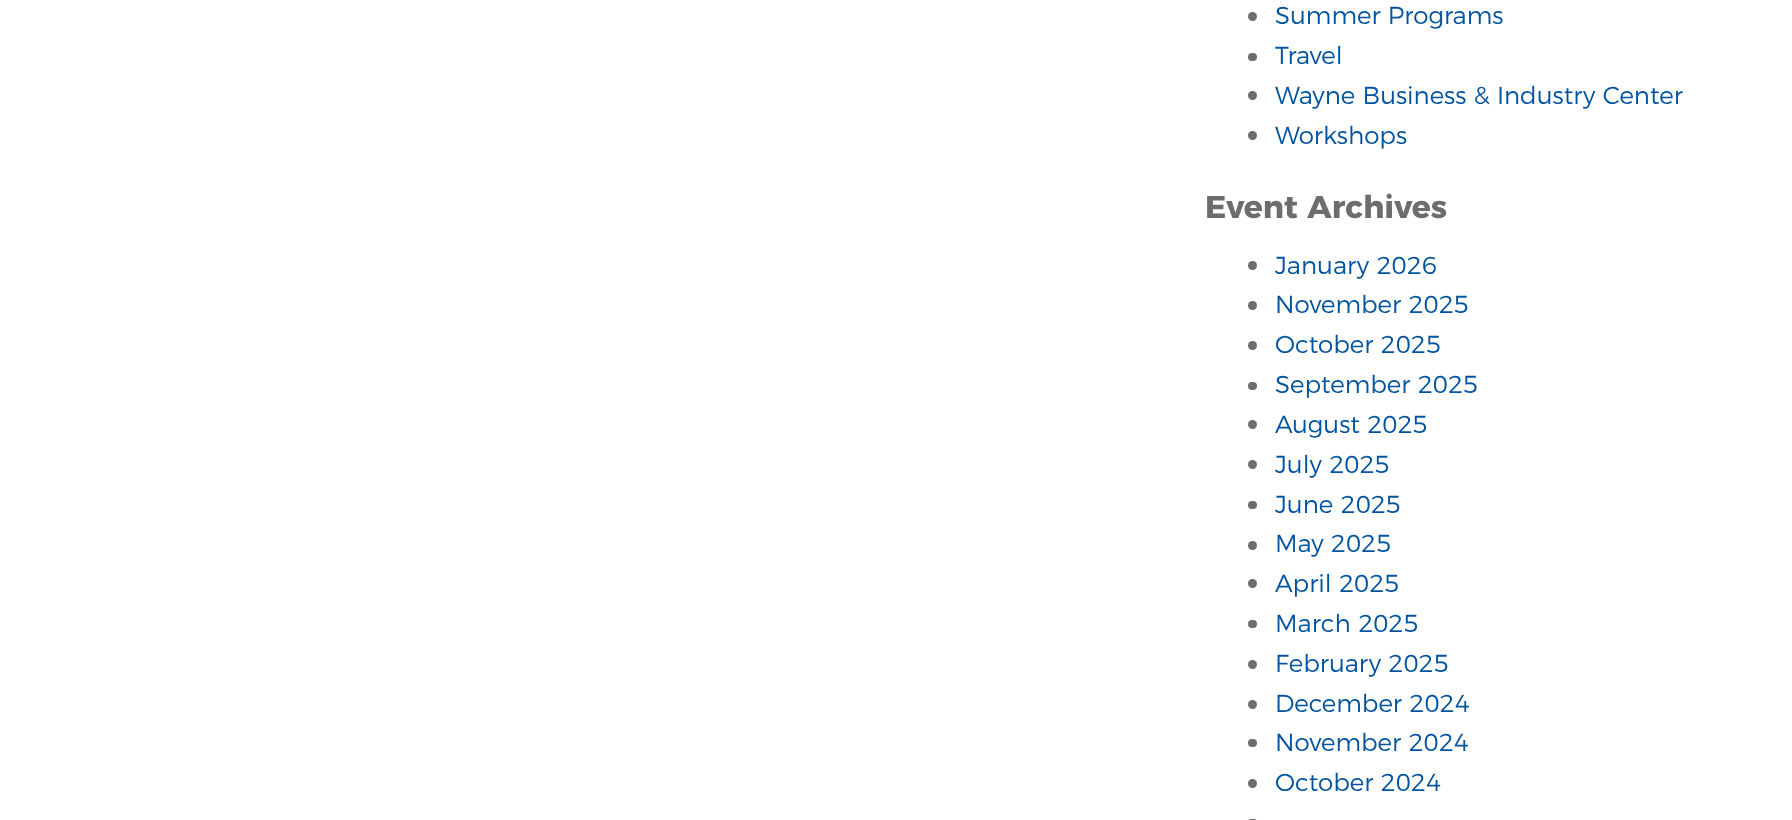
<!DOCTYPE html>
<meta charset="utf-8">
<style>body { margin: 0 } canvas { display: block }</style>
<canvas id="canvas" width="1792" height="820"></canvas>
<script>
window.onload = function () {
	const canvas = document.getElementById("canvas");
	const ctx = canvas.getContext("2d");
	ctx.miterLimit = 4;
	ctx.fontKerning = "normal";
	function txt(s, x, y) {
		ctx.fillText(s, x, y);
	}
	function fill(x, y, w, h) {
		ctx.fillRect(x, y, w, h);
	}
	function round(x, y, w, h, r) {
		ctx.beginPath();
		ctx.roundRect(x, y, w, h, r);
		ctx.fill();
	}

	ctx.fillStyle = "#FFFFFF";
	fill(0, 0, 1792, 820);
	ctx.fillStyle = "#6B6D6E";
	ctx.beginPath();
	ctx.arc(1252.5, 16.5, 4.5, 0, Math.PI * 2);
	ctx.fill();
	round(1248, 53, 9, 8, 4);
	ctx.beginPath();
	ctx.arc(1252.5, 95.5, 4.5, 0, Math.PI * 2);
	ctx.fill();
	ctx.beginPath();
	ctx.arc(1252.5, 135.5, 4.5, 0, Math.PI * 2);
	ctx.fill();
	ctx.beginPath();
	ctx.arc(1252.5, 265.5, 4.5, 0, Math.PI * 2);
	ctx.fill();
	ctx.beginPath();
	ctx.arc(1252.5, 305.5, 4.5, 0, Math.PI * 2);
	ctx.fill();
	ctx.beginPath();
	ctx.arc(1252.5, 345.5, 4.5, 0, Math.PI * 2);
	ctx.fill();
	round(1248, 382, 9, 8, 4);
	ctx.beginPath();
	ctx.arc(1252.5, 424.5, 4.5, 0, Math.PI * 2);
	ctx.fill();
	ctx.beginPath();
	ctx.arc(1252.5, 464.5, 4.5, 0, Math.PI * 2);
	ctx.fill();
	round(1248, 501, 9, 8, 4);
	ctx.beginPath();
	ctx.arc(1252.5, 545.5, 4.5, 0, Math.PI * 2);
	ctx.fill();
	ctx.beginPath();
	ctx.arc(1252.5, 583.5, 4.5, 0, Math.PI * 2);
	ctx.fill();
	round(1248, 620, 9, 8, 4);
	ctx.beginPath();
	ctx.arc(1252.5, 664.5, 4.5, 0, Math.PI * 2);
	ctx.fill();
	ctx.beginPath();
	ctx.arc(1252.5, 704.5, 4.5, 0, Math.PI * 2);
	ctx.fill();
	round(1248, 739, 9, 8, 4);
	ctx.beginPath();
	ctx.arc(1252.5, 783.5, 4.5, 0, Math.PI * 2);
	ctx.fill();
	round(1248, 819, 9, 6, 4.5);
	ctx.font = "300 24.5px Montserrat";
	ctx.fillStyle = "#00539F";
	txt("Summer Programs", 1275, 24);
	txt("Travel", 1275, 64);
	txt("Wayne Business & Industry Center", 1275, 104);
	txt("Workshops", 1275, 144);
	ctx.font = "bold 31.5px Montserrat";
	ctx.fillStyle = "#6B6D6E";
	txt("Event Archives", 1205, 218);
	ctx.font = "300 24.5px Montserrat";
	ctx.fillStyle = "#00539F";
	txt("January 2026", 1275, 274);
	txt("November 2025", 1275, 313);
	txt("October 2025", 1275, 353);
	txt("September 2025", 1275, 393);
	txt("August 2025", 1275, 433);
	txt("July 2025", 1275, 473);
	txt("June 2025", 1275, 513);
	txt("May 2025", 1275, 552);
	txt("April 2025", 1275, 592);
	txt("March 2025", 1275, 632);
	txt("February 2025", 1275, 672);
	txt("December 2024", 1275, 712);
	txt("November 2024", 1275, 751);
	txt("October 2024", 1275, 791);
};
</script>
